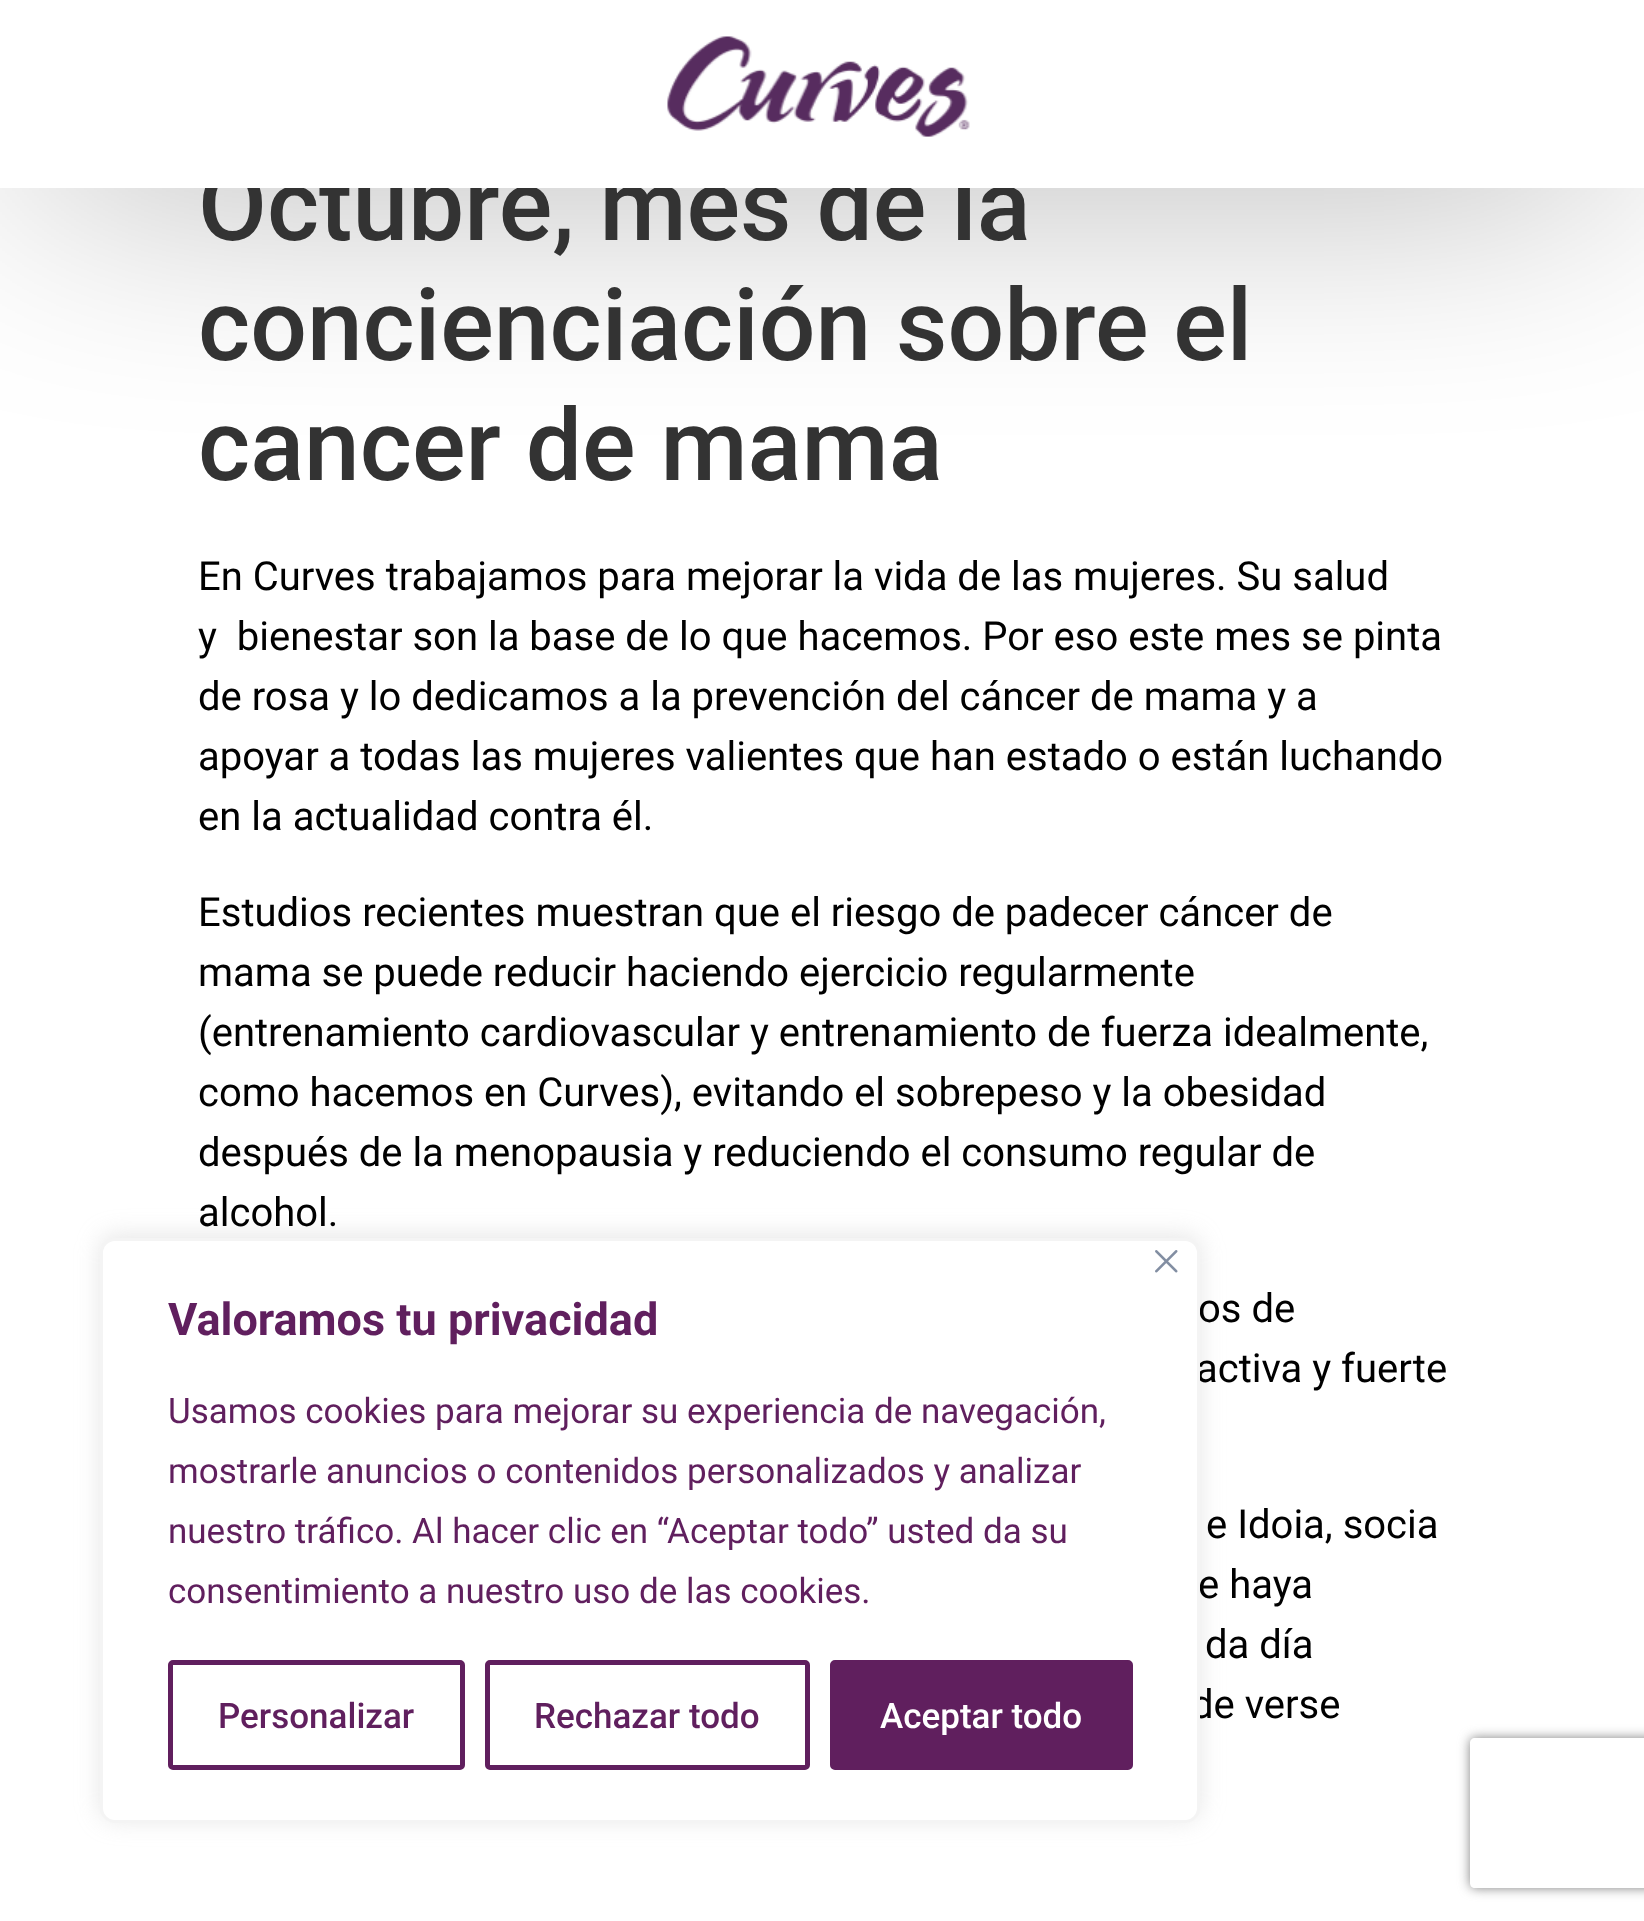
<!DOCTYPE html>
<meta charset="utf-8">
<style>body { margin: 0 } canvas { display: block }</style>
<canvas id="canvas" width="1644" height="1921"></canvas>
<img id="img1" src="img_01.png" hidden>
<img id="img2" src="img_02.png" hidden>
<script>
window.onload = function () {
	const canvas = document.getElementById("canvas");
	const ctx = canvas.getContext("2d");
	ctx.miterLimit = 4;
	ctx.fontKerning = "normal";
	function txt(s, x, y) {
		ctx.fillText(s, x, y);
	}
	function fill(x, y, w, h) {
		ctx.fillRect(x, y, w, h);
	}
	function img(id, x, y, w, h) {
		ctx.drawImage(document.getElementById(id), x, y, w, h);
	}

	ctx.fillStyle = "#FFFFFF";
	fill(0, 0, 1644, 1921);
	ctx.fillStyle = "rgba(0, 0, 0, 0.5)";
	ctx.filter = "blur(125px)";
	ctx.beginPath();
	ctx.rect(38, 38, 1570, 112);
	ctx.fill();
	ctx.filter = "none";
	ctx.fillStyle = "rgba(172, 171, 171, 0.3)";
	ctx.filter = "blur(12.5px)";
	ctx.beginPath();
	ctx.roundRect(100, 1235, 1100, 585, 15);
	ctx.fill();
	ctx.filter = "none";
	ctx.save();
	ctx.beginPath();
	ctx.moveTo(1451, 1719);
	ctx.lineTo(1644, 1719);
	ctx.lineTo(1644, 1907);
	ctx.lineTo(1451, 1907);
	ctx.closePath();
	ctx.moveTo(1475, 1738);
	ctx.lineTo(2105, 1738);
	ctx.bezierCurveTo(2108, 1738, 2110, 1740, 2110, 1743);
	ctx.lineTo(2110, 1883);
	ctx.bezierCurveTo(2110, 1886, 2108, 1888, 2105, 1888);
	ctx.lineTo(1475, 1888);
	ctx.bezierCurveTo(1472, 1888, 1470, 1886, 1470, 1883);
	ctx.lineTo(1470, 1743);
	ctx.bezierCurveTo(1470, 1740, 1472, 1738, 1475, 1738);
	ctx.closePath();
	ctx.clip("evenodd");
	ctx.fillStyle = "#808080";
	ctx.filter = "blur(6px)";
	ctx.beginPath();
	ctx.roundRect(1470, 1738, 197, 150, 5);
	ctx.fill();
	ctx.filter = "none";
	ctx.restore();
	ctx.font = "500 100px Roboto";
	ctx.fillStyle = "#333333";
	txt("Octubre, mes de la", 198, 240);
	ctx.fillStyle = "#FFFFFF";
	fill(0, 0, 1644, 188);
	img("img1", 667, 36, 303, 101);
	ctx.fillStyle = "#333333";
	txt("concienciación sobre el", 198, 360);
	txt("cancer de mama", 198, 480);
	ctx.font = "40px Roboto";
	ctx.fillStyle = "#000000";
	txt("En Curves trabajamos para mejorar la vida de las mujeres. Su salud", 198, 590);
	txt("y  bienestar son la base de lo que hacemos. Por eso este mes se pinta", 198, 650);
	txt("de rosa y lo dedicamos a la prevención del cáncer de mama y a", 198, 710);
	txt("apoyar a todas las mujeres valientes que han estado o están luchando", 198, 770);
	txt("en la actualidad contra él.", 198, 830);
	txt("Estudios recientes muestran que el riesgo de padecer cáncer de", 198, 926);
	txt("mama se puede reducir haciendo ejercicio regularmente", 198, 986);
	txt("(entrenamiento cardiovascular y entrenamiento de fuerza idealmente,", 198, 1046);
	txt("como hacemos en Curves), evitando el sobrepeso y la obesidad", 198, 1106);
	txt("después de la menopausia y reduciendo el consumo regular de", 198, 1166);
	txt("alcohol.", 198, 1226);
	txt("os de", 1198, 1322);
	txt("activa y fuerte", 1196, 1382);
	txt("e Idoia, socia", 1206, 1538);
	txt("e haya", 1198, 1598);
	txt("da día", 1205, 1658);
	txt("de verse", 1191, 1718);
	ctx.fillStyle = "#FFFFFF";
	ctx.beginPath();
	ctx.roundRect(101.5, 1239.5, 1097, 582, 13.5);
	ctx.fill();
	ctx.strokeStyle = "#F4F4F4";
	ctx.lineWidth = 3;
	ctx.stroke();
	img("img2", 1155, 1250, 23, 23);
	ctx.font = "bold 45px Roboto";
	ctx.fillStyle = "#601F5E";
	txt("Valoramos tu privacidad", 168, 1335);
	ctx.font = "35px Roboto";
	txt("Usamos cookies para mejorar su experiencia de navegación,", 168, 1423);
	txt("mostrarle anuncios o contenidos personalizados y analizar", 168, 1483);
	txt("nuestro tráfico. Al hacer clic en “Aceptar todo” usted da su", 168, 1543);
	txt("consentimiento a nuestro uso de las cookies.", 168, 1603);
	ctx.beginPath();
	ctx.roundRect(170.5, 1662.5, 292, 105, 2.5);
	ctx.strokeStyle = "#601F5E";
	ctx.lineWidth = 5;
	ctx.stroke();
	ctx.font = "500 35px Roboto";
	txt("Personalizar", 218, 1728);
	ctx.beginPath();
	ctx.roundRect(487.5, 1662.5, 320, 105, 2.5);
	ctx.stroke();
	txt("Rechazar todo", 534, 1728);
	ctx.beginPath();
	ctx.roundRect(832.5, 1662.5, 298, 105, 2.5);
	ctx.fill();
	ctx.stroke();
	ctx.fillStyle = "#FFFFFF";
	txt("Aceptar todo", 880, 1728);
};
</script>
